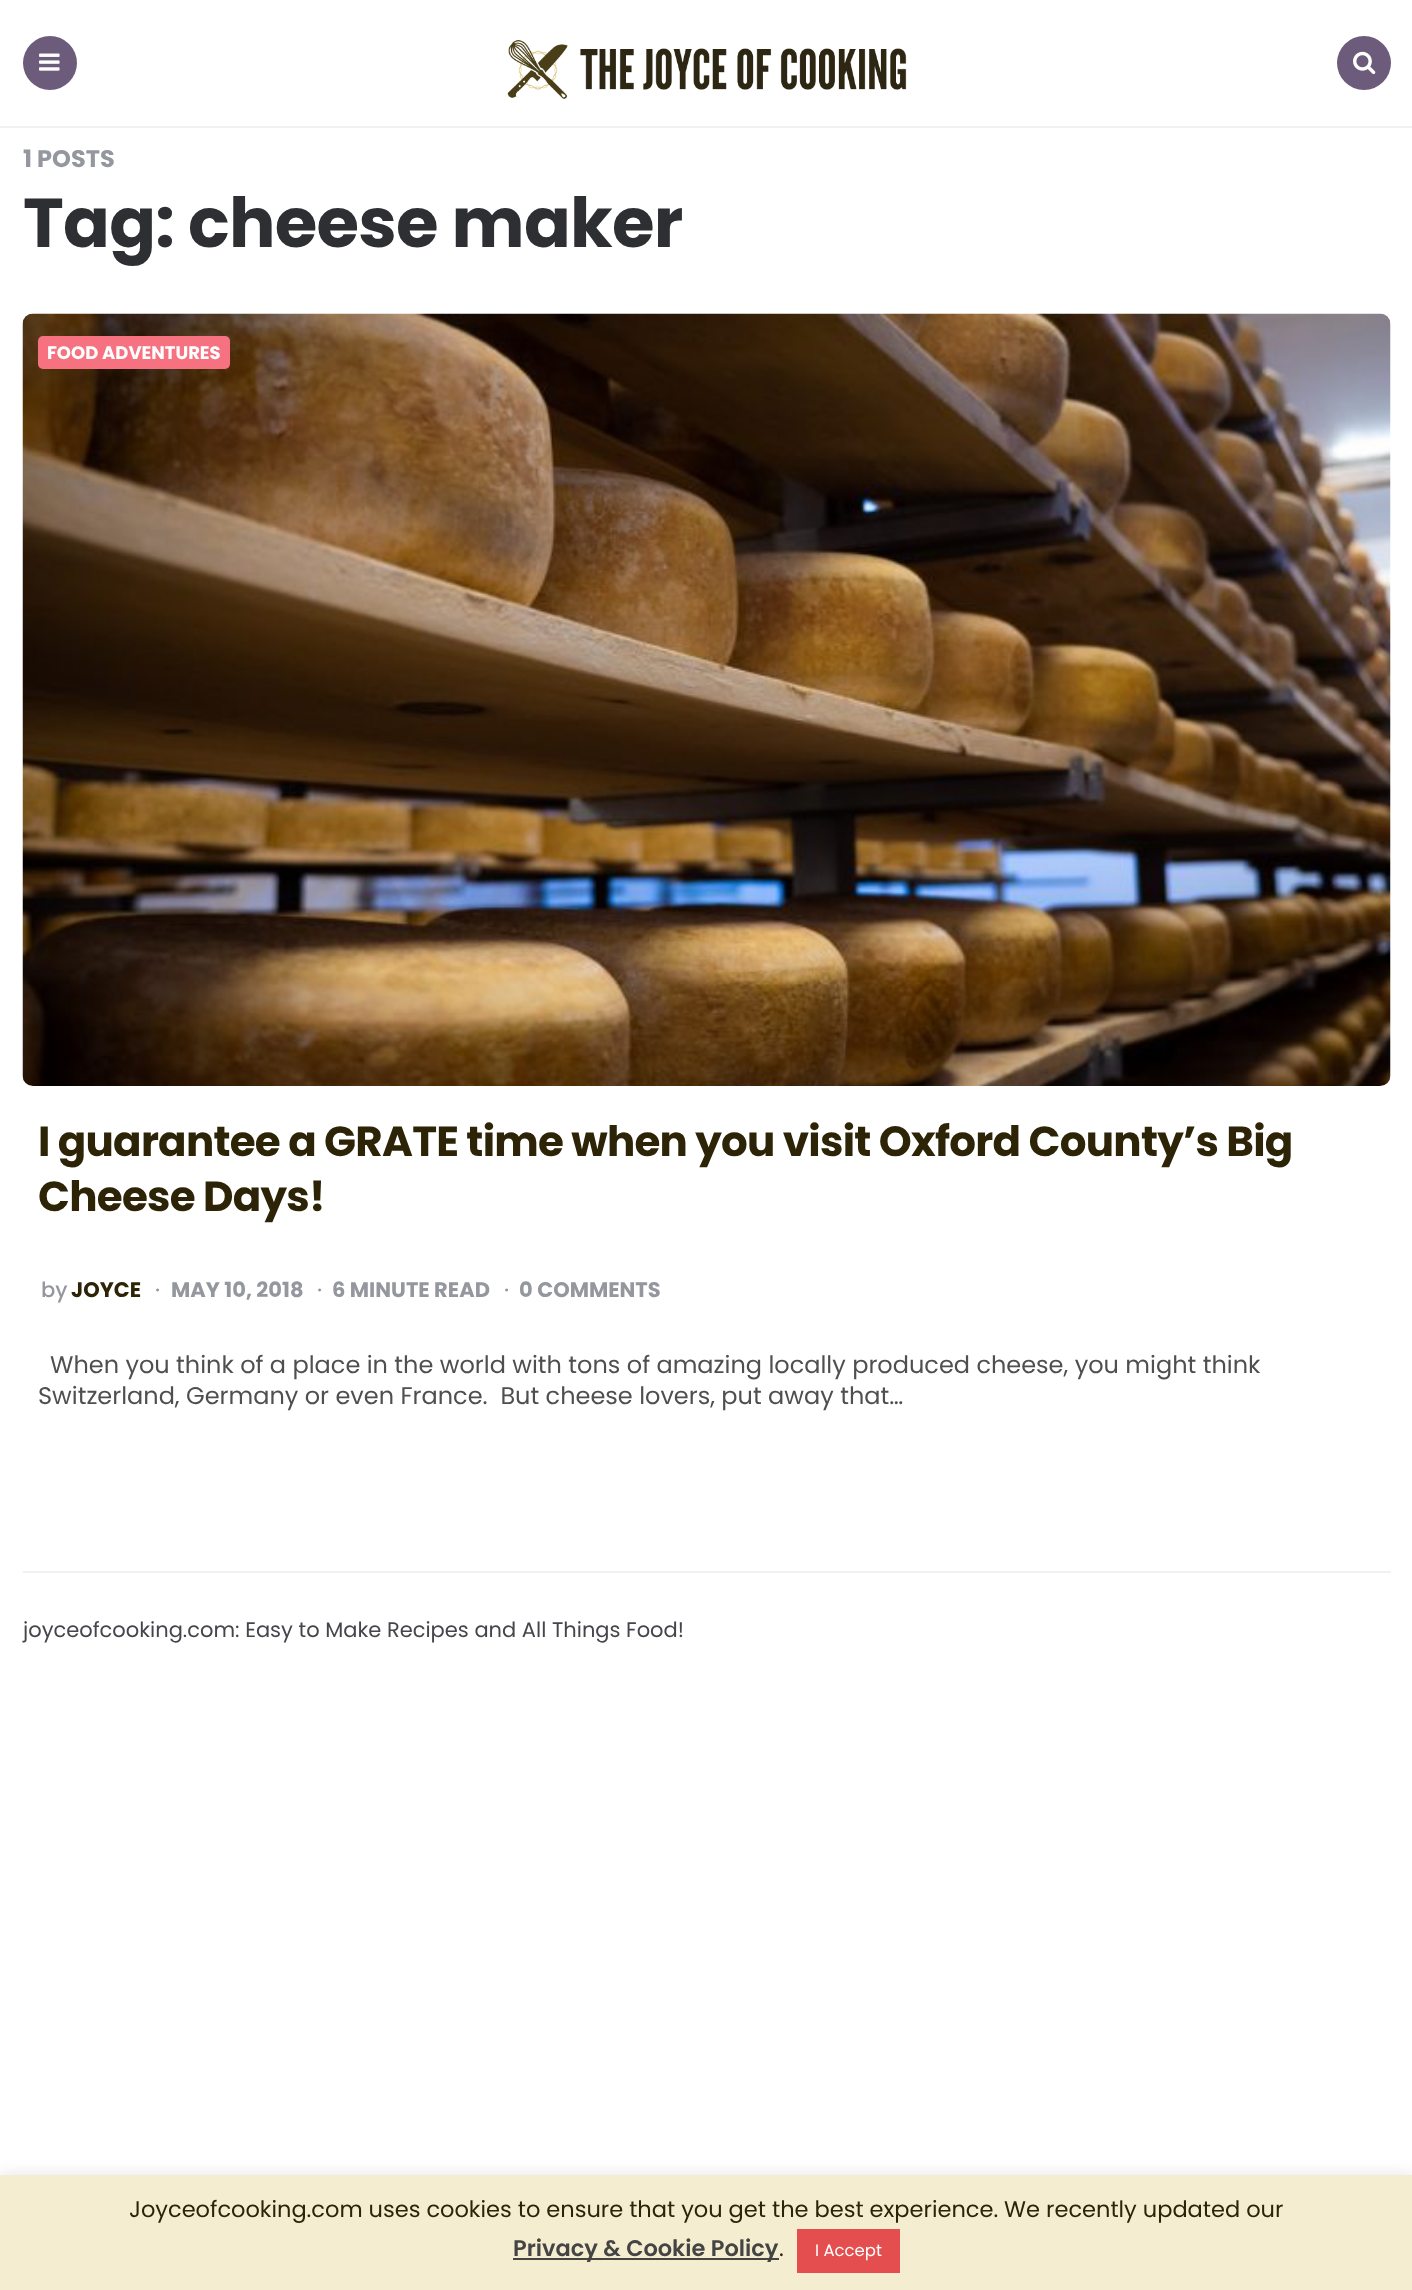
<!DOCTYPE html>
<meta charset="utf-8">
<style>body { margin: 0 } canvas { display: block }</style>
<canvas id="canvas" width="1412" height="2290"></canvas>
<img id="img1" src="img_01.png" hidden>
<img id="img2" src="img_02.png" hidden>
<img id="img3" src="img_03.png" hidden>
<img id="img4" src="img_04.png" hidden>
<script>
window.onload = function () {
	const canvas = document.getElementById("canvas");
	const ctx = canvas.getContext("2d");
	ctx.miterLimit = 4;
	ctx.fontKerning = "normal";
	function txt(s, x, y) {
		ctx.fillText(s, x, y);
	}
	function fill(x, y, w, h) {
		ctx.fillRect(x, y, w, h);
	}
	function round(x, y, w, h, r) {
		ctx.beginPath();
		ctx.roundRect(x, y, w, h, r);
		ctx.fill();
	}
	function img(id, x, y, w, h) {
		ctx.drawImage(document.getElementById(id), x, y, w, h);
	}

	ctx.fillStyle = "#FFFFFF";
	fill(0, 0, 1412, 2290);
	ctx.fillStyle = "#F1F1F1";
	fill(0, 126, 1412, 2);
	ctx.fillStyle = "#6C5B7B";
	ctx.beginPath();
	ctx.arc(50, 63, 27, 0, Math.PI * 2);
	ctx.fill();
	img("img1", 39, 53, 21, 18);
	img("img2", 507, 40, 400, 59);
	ctx.beginPath();
	ctx.arc(1364, 63, 27, 0, Math.PI * 2);
	ctx.fill();
	img("img3", 1353, 51, 23, 24);
	img("img4", 22, 313, 1369, 773);
	ctx.fillStyle = "#F67280";
	round(38, 336, 192, 33, 5);
	ctx.fillStyle = "#F1F1F1";
	fill(23, 1571, 1368, 2);
	ctx.fillStyle = "rgba(172, 171, 171, 0.3)";
	ctx.filter = "blur(7.5px)";
	ctx.beginPath();
	ctx.rect(0, 2174, 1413, 115);
	ctx.fill();
	ctx.filter = "none";
	ctx.fillStyle = "#F5EDD0";
	fill(0, 2175, 1412, 115);
	ctx.fillStyle = "#444444";
	fill(513, 2258, 266, 2);
	ctx.fillStyle = "#E44E4F";
	fill(797, 2229, 103, 44);
	ctx.font = "bold 24px Poppins";
	ctx.fillStyle = "#94979E";
	txt("1 POSTS", 23, 167);
	ctx.letterSpacing = "-0.75px";
	ctx.font = "bold 69px Poppins";
	ctx.fillStyle = "#2E2F33";
	txt("Tag: cheese maker", 23, 247);
	ctx.letterSpacing = "0px";
	ctx.font = "bold 18px Poppins";
	ctx.fillStyle = "#FFFFFF";
	txt("FOOD ADVENTURES", 47, 359);
	ctx.letterSpacing = "-0.75px";
	ctx.font = "bold 42px Poppins";
	ctx.fillStyle = "#2D2408";
	txt("I guarantee a GRATE time when you visit Oxford County’s Big", 38, 1156);
	txt("Cheese Days!", 38, 1211);
	ctx.letterSpacing = "0px";
	ctx.font = "500 21px Poppins";
	ctx.fillStyle = "#94979E";
	txt("by", 41, 1297);
	ctx.font = "bold 21px Poppins";
	ctx.fillStyle = "#2D2408";
	txt("JOYCE", 71, 1297);
	ctx.font = "500 21px Poppins";
	ctx.fillStyle = "#94979E";
	txt("·", 155, 1297);
	ctx.font = "bold 21px Poppins";
	txt("MAY 10, 2018", 171, 1297);
	ctx.font = "500 21px Poppins";
	txt("·", 317, 1297);
	ctx.font = "bold 21px Poppins";
	txt("6 MINUTE READ", 332, 1297);
	ctx.font = "500 21px Poppins";
	txt("·", 504, 1297);
	ctx.font = "bold 21px Poppins";
	txt("0 COMMENTS", 519, 1297);
	ctx.font = "24px Poppins";
	ctx.fillStyle = "#4F4F4F";
	txt("When you think of a place in the world with tons of amazing locally produced cheese, you might think", 50, 1373);
	txt("Switzerland, Germany or even France.  But cheese lovers, put away that…", 38, 1404);
	ctx.font = "21px Poppins";
	ctx.fillStyle = "#45464B";
	txt("joyceofcooking.com: Easy to Make Recipes and All Things Food!", 23, 1637);
	ctx.font = "22.5px Poppins";
	ctx.fillStyle = "#2D2408";
	txt("Joyceofcooking.com uses cookies to ensure that you get the best experience. We recently updated our", 129, 2217);
	ctx.font = "600 22.5px Poppins";
	ctx.fillStyle = "#444444";
	txt("Privacy & Cookie Policy", 513, 2256);
	ctx.font = "22.5px Poppins";
	ctx.fillStyle = "#2D2408";
	txt(".", 779, 2256);
	ctx.font = "16.5px Poppins";
	ctx.fillStyle = "#FFFFFF";
	txt("I Accept", 815, 2256);
};
</script>
